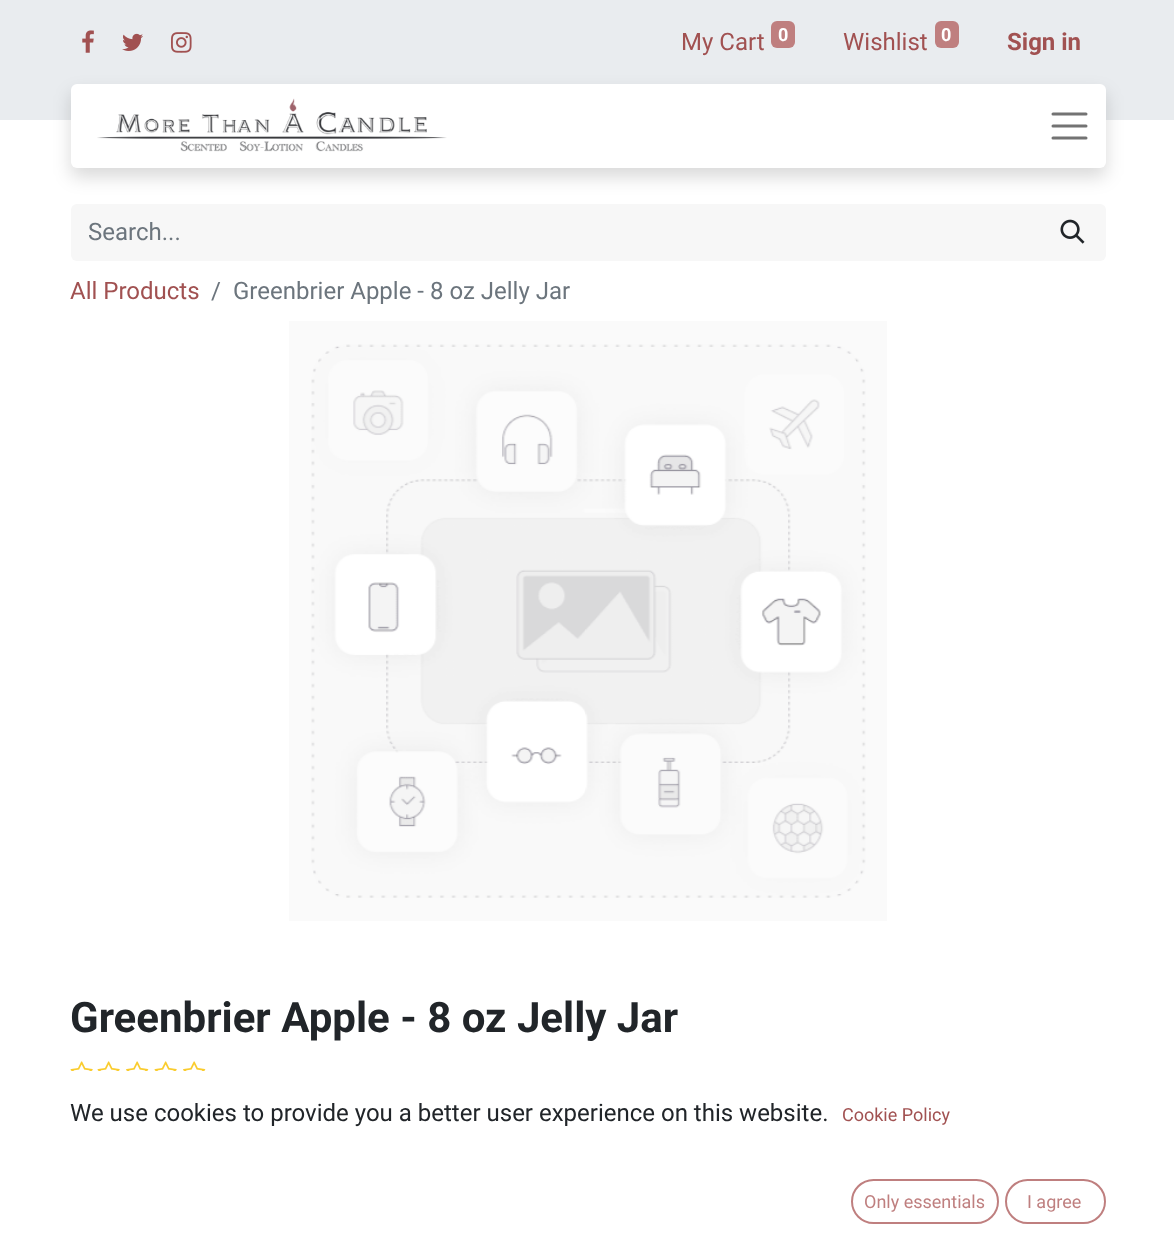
<!DOCTYPE html>
<meta charset="utf-8">
<style>body { margin: 0 } canvas { display: block }</style>
<canvas id="canvas" width="1174" height="1248"></canvas>
<img id="img1" src="img_01.png" hidden>
<img id="img2" src="img_02.png" hidden>
<img id="img3" src="img_03.png" hidden>
<img id="img4" src="img_04.png" hidden>
<img id="img5" src="img_05.png" hidden>
<img id="img6" src="img_06.png" hidden>
<img id="img7" src="img_07.png" hidden>
<img id="img8" src="img_08.png" hidden>
<script>
window.onload = function () {
	const canvas = document.getElementById("canvas");
	const ctx = canvas.getContext("2d");
	ctx.miterLimit = 4;
	ctx.fontKerning = "normal";
	function txt(s, x, y) {
		ctx.fillText(s, x, y);
	}
	function fill(x, y, w, h) {
		ctx.fillRect(x, y, w, h);
	}
	function round(x, y, w, h, r) {
		ctx.beginPath();
		ctx.roundRect(x, y, w, h, r);
		ctx.fill();
	}
	function img(id, x, y, w, h) {
		ctx.drawImage(document.getElementById(id), x, y, w, h);
	}

	ctx.fillStyle = "#FFFFFF";
	fill(0, 0, 1174, 1248);
	ctx.fillStyle = "#E9ECEF";
	fill(0, 0, 1174, 120);
	img("img1", 82, 30, 12, 23);
	img("img2", 122, 33, 21, 18);
	img("img3", 171, 32, 21, 21);
	ctx.fillStyle = "#BF7F7F";
	round(771, 21, 24, 27, 6);
	round(935, 21, 24, 27, 6);
	ctx.fillStyle = "#F7F7F7";
	ctx.beginPath();
	ctx.roundRect(71, 204, 972, 57, [6, 0, 0, 6]);
	ctx.fill();
	ctx.beginPath();
	ctx.roundRect(1041, 204, 65, 57, [0, 6, 6, 0]);
	ctx.fill();
	ctx.fillStyle = "rgba(0, 0, 0, 0.15)";
	ctx.filter = "blur(9px)";
	ctx.beginPath();
	ctx.roundRect(71, 93, 1035, 84, 6);
	ctx.fill();
	ctx.filter = "none";
	ctx.fillStyle = "#FFFFFF";
	round(71, 84, 1035, 84, 6);
	img("img4", 97, 98, 350, 54);
	ctx.beginPath();
	ctx.moveTo(1053, 114);
	ctx.lineTo(1086, 114);
	ctx.moveTo(1053, 126);
	ctx.lineTo(1086, 126);
	ctx.moveTo(1053, 138);
	ctx.lineTo(1086, 138);
	ctx.strokeStyle = "#737373";
	ctx.lineWidth = 3;
	ctx.lineCap = "round";
	ctx.stroke();
	img("img5", 1060, 219, 25, 25);
	img("img6", 289, 321, 598, 600);
	img("img7", 70, 1061, 23, 10);
	img("img7", 97, 1061, 23, 10);
	img("img8", 126, 1061, 23, 10);
	img("img7", 154, 1061, 23, 10);
	img("img8", 183, 1061, 23, 10);
	ctx.beginPath();
	ctx.roundRect(852, 1180, 146, 43, 21.5);
	ctx.strokeStyle = "#BF7F7F";
	ctx.lineWidth = 2;
	ctx.stroke();
	ctx.beginPath();
	ctx.roundRect(1006, 1180, 99, 43, 21.5);
	ctx.stroke();
	ctx.font = "24px Roboto";
	ctx.fillStyle = "#A15151";
	txt("My Cart", 681, 50);
	ctx.font = "bold 18px Roboto";
	ctx.fillStyle = "#FFFFFF";
	txt("0", 778, 41);
	ctx.font = "24px Roboto";
	ctx.fillStyle = "#A15151";
	txt("Wishlist", 843, 50);
	ctx.font = "bold 18px Roboto";
	ctx.fillStyle = "#FFFFFF";
	txt("0", 941, 41);
	ctx.font = "bold 24px Roboto";
	ctx.fillStyle = "#A15151";
	txt("Sign in", 1007, 50);
	ctx.font = "24px Roboto";
	ctx.fillStyle = "#6C757D";
	txt("Search...", 88, 240);
	ctx.fillStyle = "#A15151";
	txt("All Products", 70, 299);
	ctx.fillStyle = "#6C757D";
	txt("/", 211, 299);
	txt("Greenbrier Apple - 8 oz Jelly Jar", 233, 299);
	ctx.font = "bold 42px Roboto";
	ctx.fillStyle = "#212529";
	txt("Greenbrier Apple - 8 oz Jelly Jar", 70, 1032);
	ctx.font = "24px Roboto";
	txt("We use cookies to provide you a better user experience on this website.", 70, 1121);
	ctx.font = "18px Roboto";
	ctx.fillStyle = "#A15151";
	txt("Cookie Policy", 842, 1121);
	ctx.fillStyle = "#BF7F7F";
	txt("Only essentials", 864, 1208);
	txt("I agree", 1027, 1208);
};
</script>
